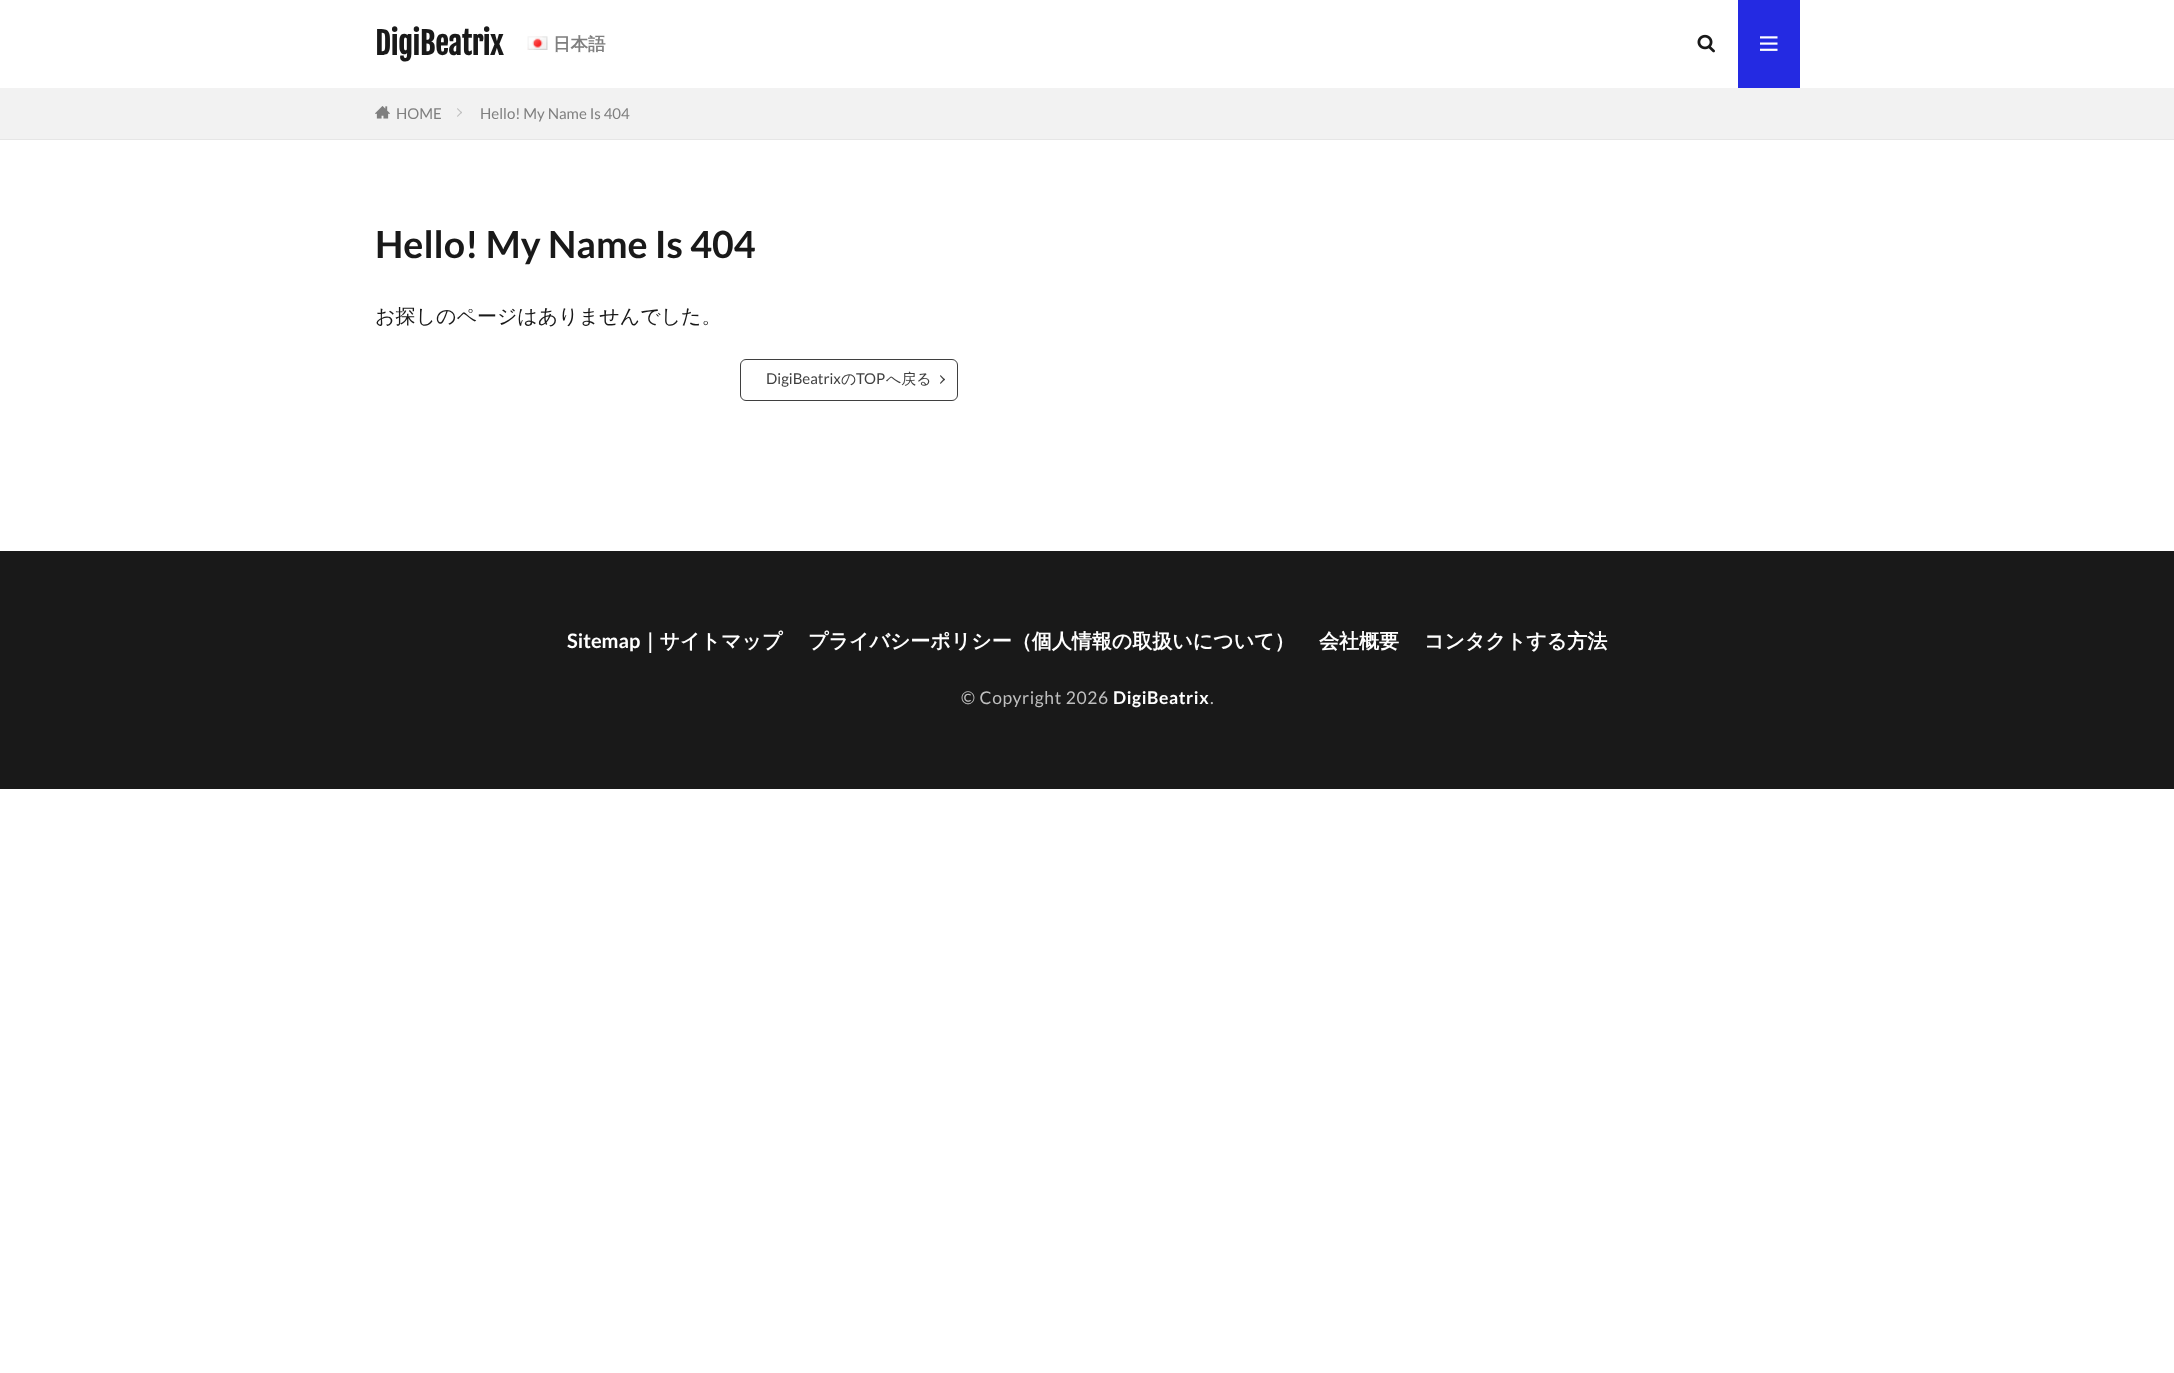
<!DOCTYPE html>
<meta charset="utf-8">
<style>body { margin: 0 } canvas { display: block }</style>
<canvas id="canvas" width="2174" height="1373"></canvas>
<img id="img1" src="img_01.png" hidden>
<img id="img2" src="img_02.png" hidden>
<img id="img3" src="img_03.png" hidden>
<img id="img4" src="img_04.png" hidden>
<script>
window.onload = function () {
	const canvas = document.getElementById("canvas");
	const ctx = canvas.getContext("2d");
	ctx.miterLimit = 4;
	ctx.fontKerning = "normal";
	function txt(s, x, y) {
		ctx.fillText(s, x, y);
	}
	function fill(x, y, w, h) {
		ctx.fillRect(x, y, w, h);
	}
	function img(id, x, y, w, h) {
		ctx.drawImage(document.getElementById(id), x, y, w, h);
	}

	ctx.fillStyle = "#FFFFFF";
	fill(0, 0, 2174, 1373);
	img("img1", 527, 36, 21, 14);
	img("img2", 1697, 34, 18, 19);
	ctx.fillStyle = "#242AE2";
	fill(1738, 0, 62, 88);
	img("img3", 1760, 36, 18, 15);
	ctx.fillStyle = "#F2F2F2";
	fill(0, 88, 2174, 51);
	ctx.fillStyle = "#E6E6E6";
	fill(0, 139, 2174, 1);
	img("img4", 375, 106, 15, 13);
	ctx.fillStyle = "#BFBFBF";
	ctx.beginPath();
	ctx.moveTo(457.5, 108);
	ctx.lineTo(462, 112.5);
	ctx.lineTo(461.5, 113.5);
	ctx.lineTo(457, 109);
	ctx.closePath();
	ctx.fill();
	ctx.beginPath();
	ctx.moveTo(461.5, 111.5);
	ctx.lineTo(462, 112.5);
	ctx.lineTo(457.5, 117);
	ctx.lineTo(457, 116);
	ctx.closePath();
	ctx.fill();
	ctx.beginPath();
	ctx.roundRect(740.5, 359.5, 217, 41, 5.5);
	ctx.strokeStyle = "#3F3F3F";
	ctx.stroke();
	ctx.fillStyle = "#3F3F3F";
	ctx.beginPath();
	ctx.moveTo(940.5, 375);
	ctx.lineTo(945, 379.5);
	ctx.lineTo(944, 380.5);
	ctx.lineTo(940, 376);
	ctx.closePath();
	ctx.fill();
	ctx.beginPath();
	ctx.moveTo(944, 378.5);
	ctx.lineTo(945, 379.5);
	ctx.lineTo(940.5, 384);
	ctx.lineTo(940, 383);
	ctx.closePath();
	ctx.fill();
	ctx.fillStyle = "#191919";
	fill(0, 551, 2174, 238);
	ctx.font = "bold 30px Fjalla One";
	txt("DigiBeatrix", 375, 55);
	ctx.font = "bold 17.5px WenQuanYi Zen Hei";
	ctx.fillStyle = "#7F7F7F";
	txt("日本語", 553, 50);
	ctx.font = "15px Lato";
	txt("HOME", 396, 119);
	txt("Hello! My Name Is 404", 480, 119);
	ctx.font = "bold 37.5px Lato";
	ctx.fillStyle = "#191919";
	txt("Hello! My Name Is 404", 375, 258);
	ctx.font = "500 20px WenQuanYi Zen Hei";
	txt("お探しのページはありませんでした。", 375, 323);
	ctx.font = "15px Lato";
	ctx.fillStyle = "#3F3F3F";
	txt("DigiBeatrix", 766, 384);
	ctx.font = "500 15px WenQuanYi Zen Hei";
	txt("の", 841, 384);
	ctx.font = "15px Lato";
	txt("TOP", 856, 384);
	ctx.font = "500 15px WenQuanYi Zen Hei";
	txt("へ戻る", 886, 384);
	ctx.font = "bold 20px Lato";
	ctx.fillStyle = "#FFFFFF";
	txt("Sitemap", 567, 648);
	ctx.font = "bold 20px WenQuanYi Zen Hei";
	txt("｜サイトマップ", 640, 648);
	txt("プライバシーポリシー（個人情報の取扱いについて）", 808, 648);
	txt("会社概要", 1319, 648);
	txt("コンタクトする方法", 1424, 648);
	ctx.letterSpacing = "0.6px";
	ctx.font = "17.5px Lato";
	ctx.fillStyle = "#BFBFBF";
	txt("© Copyright 2026", 961, 704);
	ctx.font = "bold 17.5px Lato";
	ctx.fillStyle = "#FFFFFF";
	txt("DigiBeatrix", 1113, 704);
	ctx.font = "17.5px Lato";
	ctx.fillStyle = "#BFBFBF";
	txt(".", 1210, 704);
};
</script>
